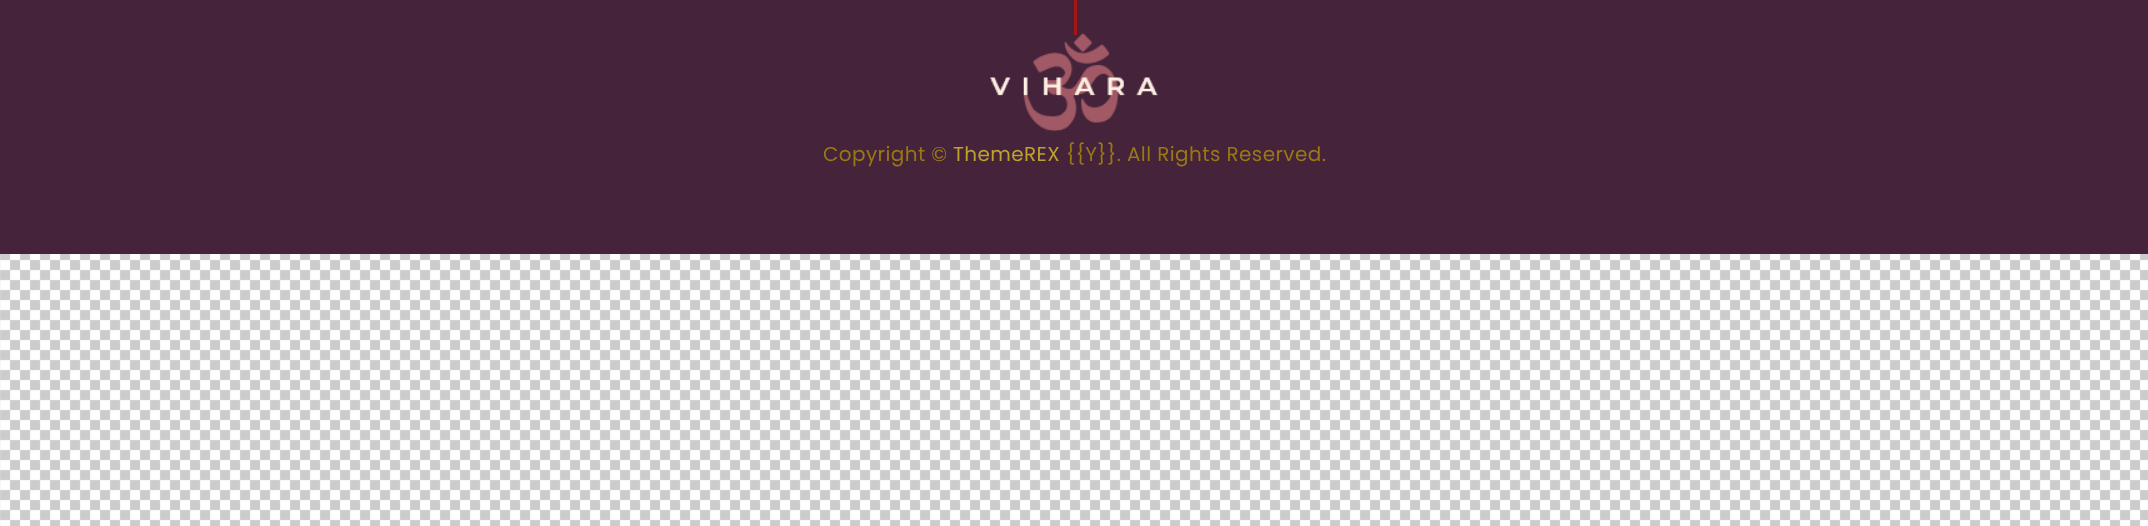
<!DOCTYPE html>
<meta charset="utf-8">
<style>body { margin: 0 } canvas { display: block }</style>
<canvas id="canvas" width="2148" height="526"></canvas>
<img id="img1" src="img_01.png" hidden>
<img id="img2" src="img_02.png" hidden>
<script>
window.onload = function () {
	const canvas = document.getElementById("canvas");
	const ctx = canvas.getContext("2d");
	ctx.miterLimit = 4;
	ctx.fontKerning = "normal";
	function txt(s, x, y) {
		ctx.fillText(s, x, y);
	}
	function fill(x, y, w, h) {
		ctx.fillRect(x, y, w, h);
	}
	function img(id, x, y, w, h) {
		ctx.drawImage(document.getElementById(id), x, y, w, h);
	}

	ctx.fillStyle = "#FFFFFF";
	fill(0, 0, 2148, 526);
	img("img1", 0, 254, 2148, 272);
	ctx.fillStyle = "#44233B";
	fill(0, 0, 2148, 254);
	img("img2", 990, 33, 168, 99);
	ctx.fillStyle = "#A91414";
	fill(1074, 0, 3, 35);
	ctx.letterSpacing = "0.4px";
	ctx.font = "20px Poppins";
	ctx.fillStyle = "#997813";
	txt("Copyright ©", 823, 161);
	ctx.fillStyle = "#BCA22D";
	txt("ThemeREX", 953, 161);
	ctx.fillStyle = "#997813";
	txt("{{Y}}. All Rights Reserved.", 1066, 161);
};
</script>
